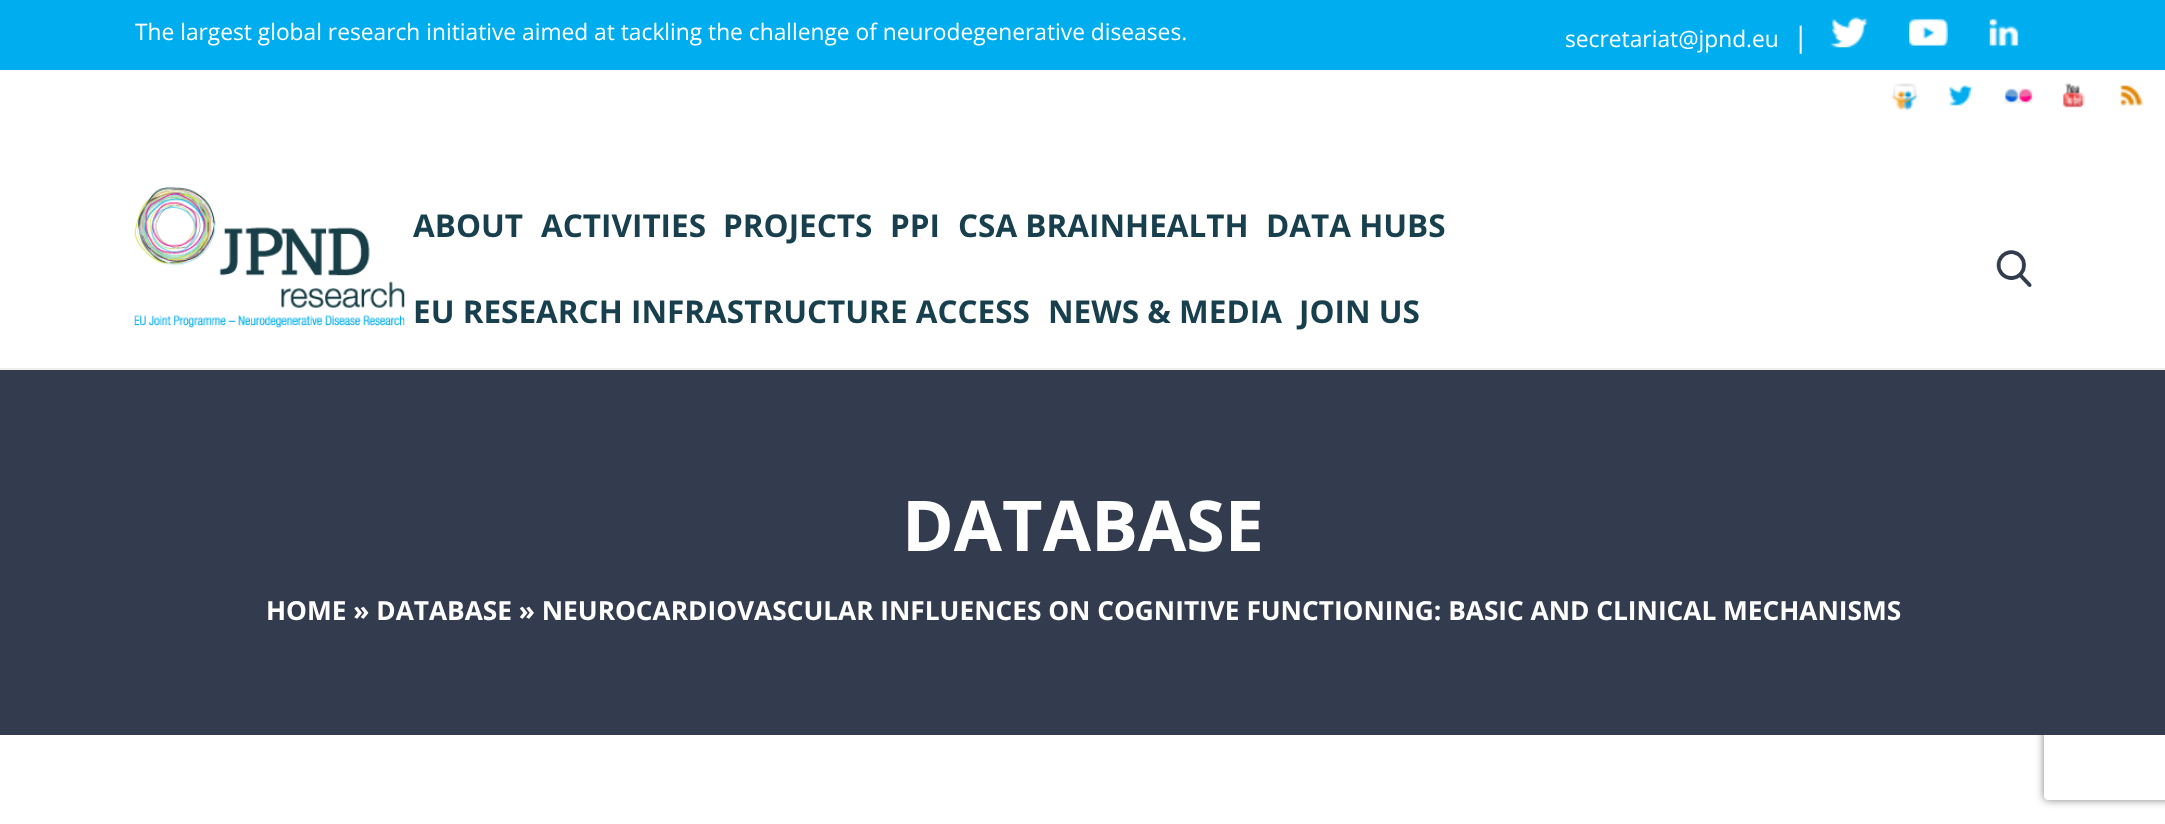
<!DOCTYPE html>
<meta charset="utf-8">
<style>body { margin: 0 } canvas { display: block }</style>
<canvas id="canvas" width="2165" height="824"></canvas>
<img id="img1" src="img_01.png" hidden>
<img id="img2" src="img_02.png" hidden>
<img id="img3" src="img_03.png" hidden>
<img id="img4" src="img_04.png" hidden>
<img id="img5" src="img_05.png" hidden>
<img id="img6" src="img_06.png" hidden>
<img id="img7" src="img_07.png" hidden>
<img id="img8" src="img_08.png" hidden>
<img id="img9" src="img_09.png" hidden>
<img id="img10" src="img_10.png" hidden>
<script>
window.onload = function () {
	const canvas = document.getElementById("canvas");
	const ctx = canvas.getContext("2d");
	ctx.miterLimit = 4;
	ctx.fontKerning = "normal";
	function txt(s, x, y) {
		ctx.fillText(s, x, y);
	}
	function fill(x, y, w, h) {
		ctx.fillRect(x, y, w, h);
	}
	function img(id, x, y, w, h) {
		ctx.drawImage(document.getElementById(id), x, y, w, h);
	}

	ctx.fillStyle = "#FFFFFF";
	fill(0, 0, 2165, 824);
	ctx.fillStyle = "#00AEEF";
	fill(0, 0, 2165, 70);
	img("img1", 1830, 17, 38, 31);
	img("img2", 1909, 18, 39, 28);
	img("img3", 1989, 18, 30, 28);
	ctx.fillStyle = "#EEEEEE";
	fill(0, 368, 2165, 2);
	img("img4", 1891, 83, 28, 28);
	img("img5", 1949, 85, 24, 21);
	img("img6", 2003, 88, 30, 16);
	img("img7", 2062, 83, 23, 25);
	img("img8", 2120, 85, 23, 21);
	img("img9", 134, 187, 271, 141);
	img("img10", 1996, 250, 36, 37);
	ctx.save();
	ctx.beginPath();
	ctx.moveTo(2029, 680);
	ctx.lineTo(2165, 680);
	ctx.lineTo(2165, 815);
	ctx.lineTo(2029, 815);
	ctx.closePath();
	ctx.moveTo(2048, 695);
	ctx.lineTo(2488, 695);
	ctx.bezierCurveTo(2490, 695, 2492, 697, 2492, 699);
	ctx.lineTo(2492, 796);
	ctx.bezierCurveTo(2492, 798, 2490, 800, 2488, 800);
	ctx.lineTo(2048, 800);
	ctx.bezierCurveTo(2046, 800, 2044, 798, 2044, 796);
	ctx.lineTo(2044, 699);
	ctx.bezierCurveTo(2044, 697, 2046, 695, 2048, 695);
	ctx.closePath();
	ctx.clip("evenodd");
	ctx.fillStyle = "#808080";
	ctx.filter = "blur(4.5px)";
	ctx.beginPath();
	ctx.roundRect(2044, 695, 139, 105, 4);
	ctx.fill();
	ctx.filter = "none";
	ctx.restore();
	ctx.fillStyle = "#333C4E";
	fill(0, 370, 2165, 365);
	ctx.font = "22.75px Open Sans";
	ctx.fillStyle = "#FFFFFF";
	txt("The largest global research initiative aimed at tackling the challenge of neurodegenerative diseases.", 135, 40);
	txt("secretariat@jpnd.eu", 1565, 47);
	ctx.font = "28px Open Sans";
	txt("|", 1793, 47);
	ctx.font = "bold 31.5px Open Sans";
	ctx.fillStyle = "#183F4D";
	txt("ABOUT", 413, 237);
	txt("ACTIVITIES", 541, 237);
	txt("PROJECTS", 723, 237);
	txt("PPI", 890, 237);
	txt("CSA BRAINHEALTH", 958, 237);
	txt("DATA HUBS", 1266, 237);
	txt("EU RESEARCH INFRASTRUCTURE ACCESS", 413, 323);
	txt("NEWS & MEDIA", 1048, 323);
	txt("JOIN US", 1299, 323);
	ctx.font = "bold 70px Open Sans";
	ctx.fillStyle = "#FFFFFF";
	txt("DATABASE", 902, 551);
	ctx.font = "bold 26.25px Open Sans";
	txt("HOME » DATABASE » NEUROCARDIOVASCULAR INFLUENCES ON COGNITIVE FUNCTIONING: BASIC AND CLINICAL MECHANISMS", 266, 620);
};
</script>
